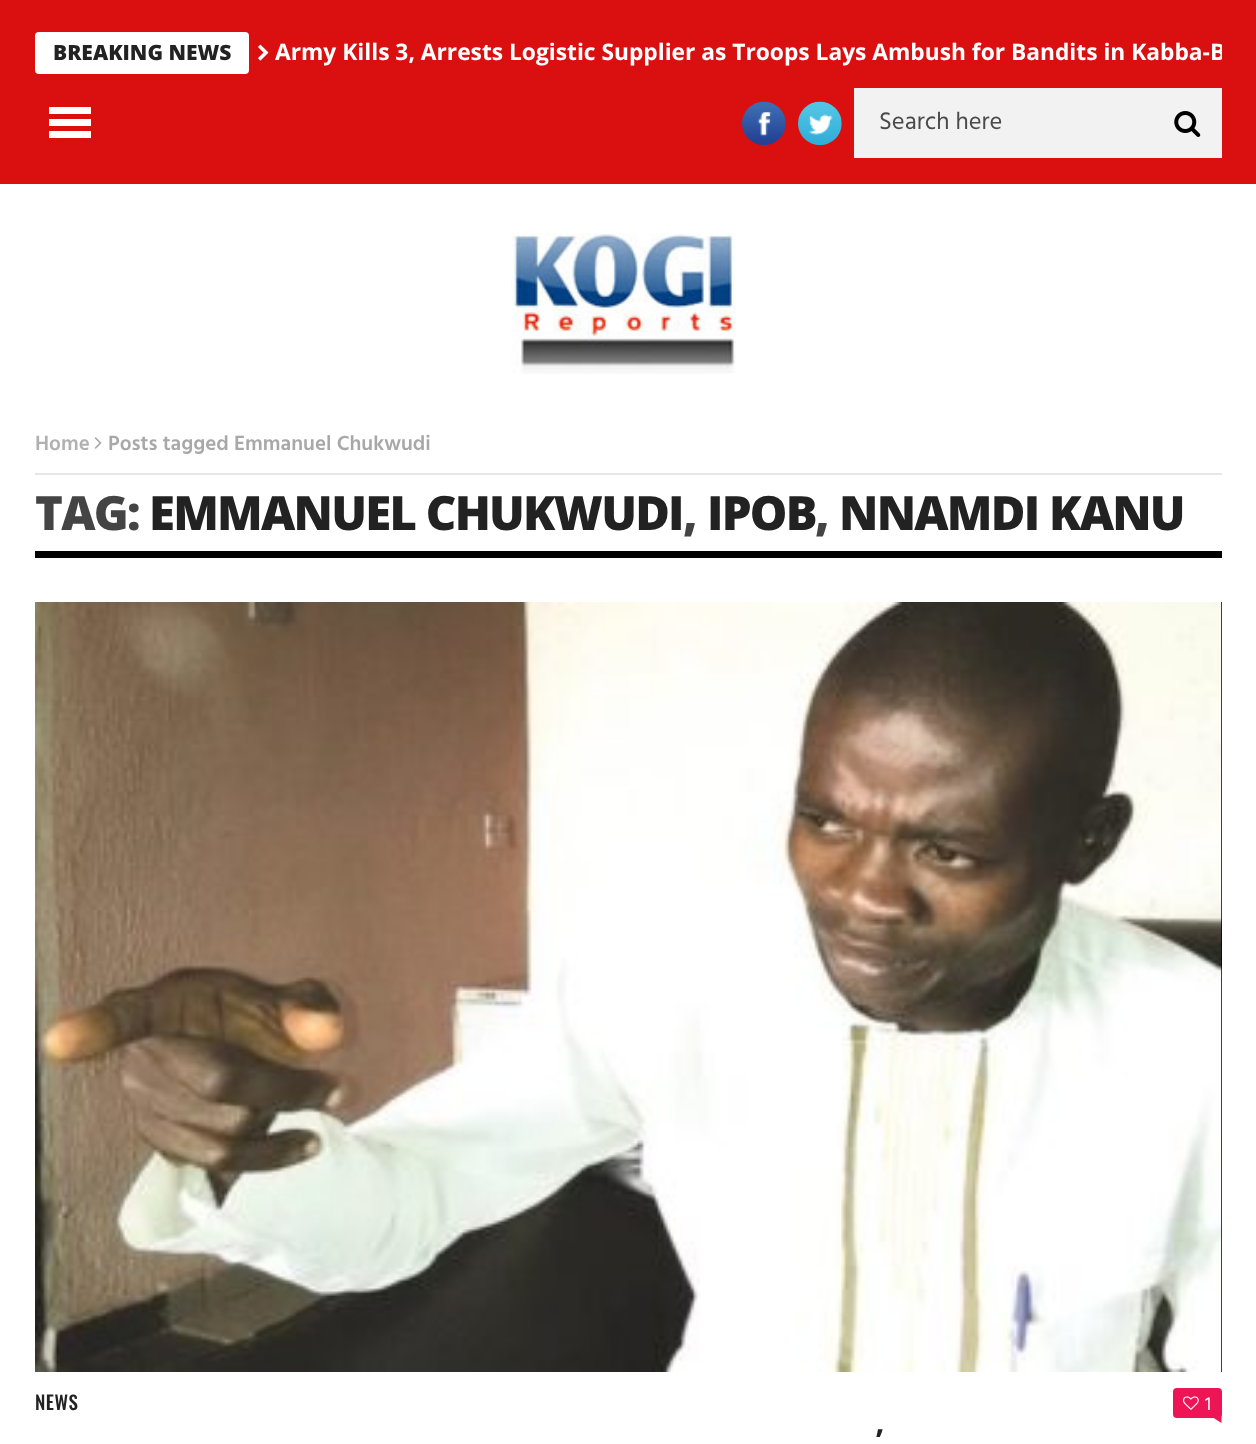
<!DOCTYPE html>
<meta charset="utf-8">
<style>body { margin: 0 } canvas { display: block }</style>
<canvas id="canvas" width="1256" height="1444"></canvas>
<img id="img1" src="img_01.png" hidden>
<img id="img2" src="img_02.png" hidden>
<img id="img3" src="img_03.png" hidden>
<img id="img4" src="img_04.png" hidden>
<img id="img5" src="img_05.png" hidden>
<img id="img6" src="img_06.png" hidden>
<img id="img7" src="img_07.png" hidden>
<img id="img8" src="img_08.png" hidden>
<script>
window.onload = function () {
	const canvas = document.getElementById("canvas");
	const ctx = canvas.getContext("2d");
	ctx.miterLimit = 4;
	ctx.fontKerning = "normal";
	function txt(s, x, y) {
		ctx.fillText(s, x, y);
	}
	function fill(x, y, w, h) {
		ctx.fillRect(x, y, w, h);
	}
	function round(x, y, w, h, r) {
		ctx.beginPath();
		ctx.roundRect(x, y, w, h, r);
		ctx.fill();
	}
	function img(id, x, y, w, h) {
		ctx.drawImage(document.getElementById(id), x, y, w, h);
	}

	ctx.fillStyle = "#FFFFFF";
	fill(0, 0, 1256, 1444);
	ctx.fillStyle = "#DA1010";
	fill(0, 0, 1256, 184);
	ctx.fillStyle = "#FFFFFF";
	round(35, 32, 214, 42, 4);
	img("img1", 258, 44, 11, 17);
	fill(49, 107, 42, 7);
	fill(49, 119, 42, 7);
	fill(49, 131, 42, 7);
	img("img2", 742, 101, 44, 45);
	img("img3", 798, 101, 44, 45);
	ctx.fillStyle = "#F2F2F2";
	fill(854, 88, 368, 70);
	img("img4", 1174, 111, 27, 26);
	img("img5", 511, 233, 225, 141);
	ctx.fillStyle = "#E6E6E6";
	fill(35, 473, 1187, 2);
	img("img6", 94, 437, 8, 12);
	ctx.fillStyle = "#000000";
	fill(35, 551, 1187, 7);
	fill(1221, 602, 1, 770);
	img("img7", 35, 602, 1187, 770);
	ctx.fillStyle = "#ED1556";
	round(1173, 1388, 49, 30, 4);
	img("img8", 1183, 1396, 16, 14);
	ctx.beginPath();
	ctx.moveTo(1207.5, 1414);
	ctx.lineTo(1221.5, 1414);
	ctx.lineTo(1221.5, 1423);
	ctx.closePath();
	ctx.fill();
	ctx.font = "800 21px Open Sans";
	ctx.fillStyle = "#222222";
	txt("BREAKING NEWS", 53, 60);
	ctx.save();
	ctx.beginPath();
	ctx.rect(35, 18, 1187, 70);
	ctx.clip();
	ctx.font = "bold 22.75px Open Sans";
	ctx.fillStyle = "#FFFFFF";
	txt("Army Kills 3, Arrests Logistic Supplier as Troops Lays Ambush for Bandits in Kabba-B", 275, 60);
	ctx.restore();
	ctx.font = "24.5px Hind";
	ctx.fillStyle = "#4A4A4A";
	txt("Search here", 879, 129);
	ctx.font = "600 21px Hind";
	ctx.fillStyle = "#B1B1B1";
	txt("Home", 35, 450);
	ctx.fillStyle = "#A8A8A8";
	txt("Posts tagged Emmanuel Chukwudi", 108, 450);
	ctx.letterSpacing = "-1.75px";
	ctx.font = "800 47.25px Open Sans";
	ctx.fillStyle = "#444444";
	txt("TAG:", 35, 530);
	ctx.fillStyle = "#222222";
	txt("EMMANUEL CHUKWUDI", 149, 530);
	ctx.fillStyle = "#444444";
	txt(",", 683, 530);
	ctx.fillStyle = "#222222";
	txt("IPOB", 707, 530);
	ctx.fillStyle = "#444444";
	txt(",", 815, 530);
	ctx.fillStyle = "#222222";
	txt("NNAMDI KANU", 839, 530);
	ctx.letterSpacing = "0.5px";
	ctx.font = "500 19px Oswald";
	txt("NEWS", 35, 1410);
	ctx.letterSpacing = "0px";
	ctx.font = "19px Hind";
	ctx.fillStyle = "#FFFFFF";
	txt("1", 1205, 1410);
	ctx.font = "bold 32px Open Sans";
	ctx.fillStyle = "#222222";
	txt("’", 876, 1452);
};
</script>
